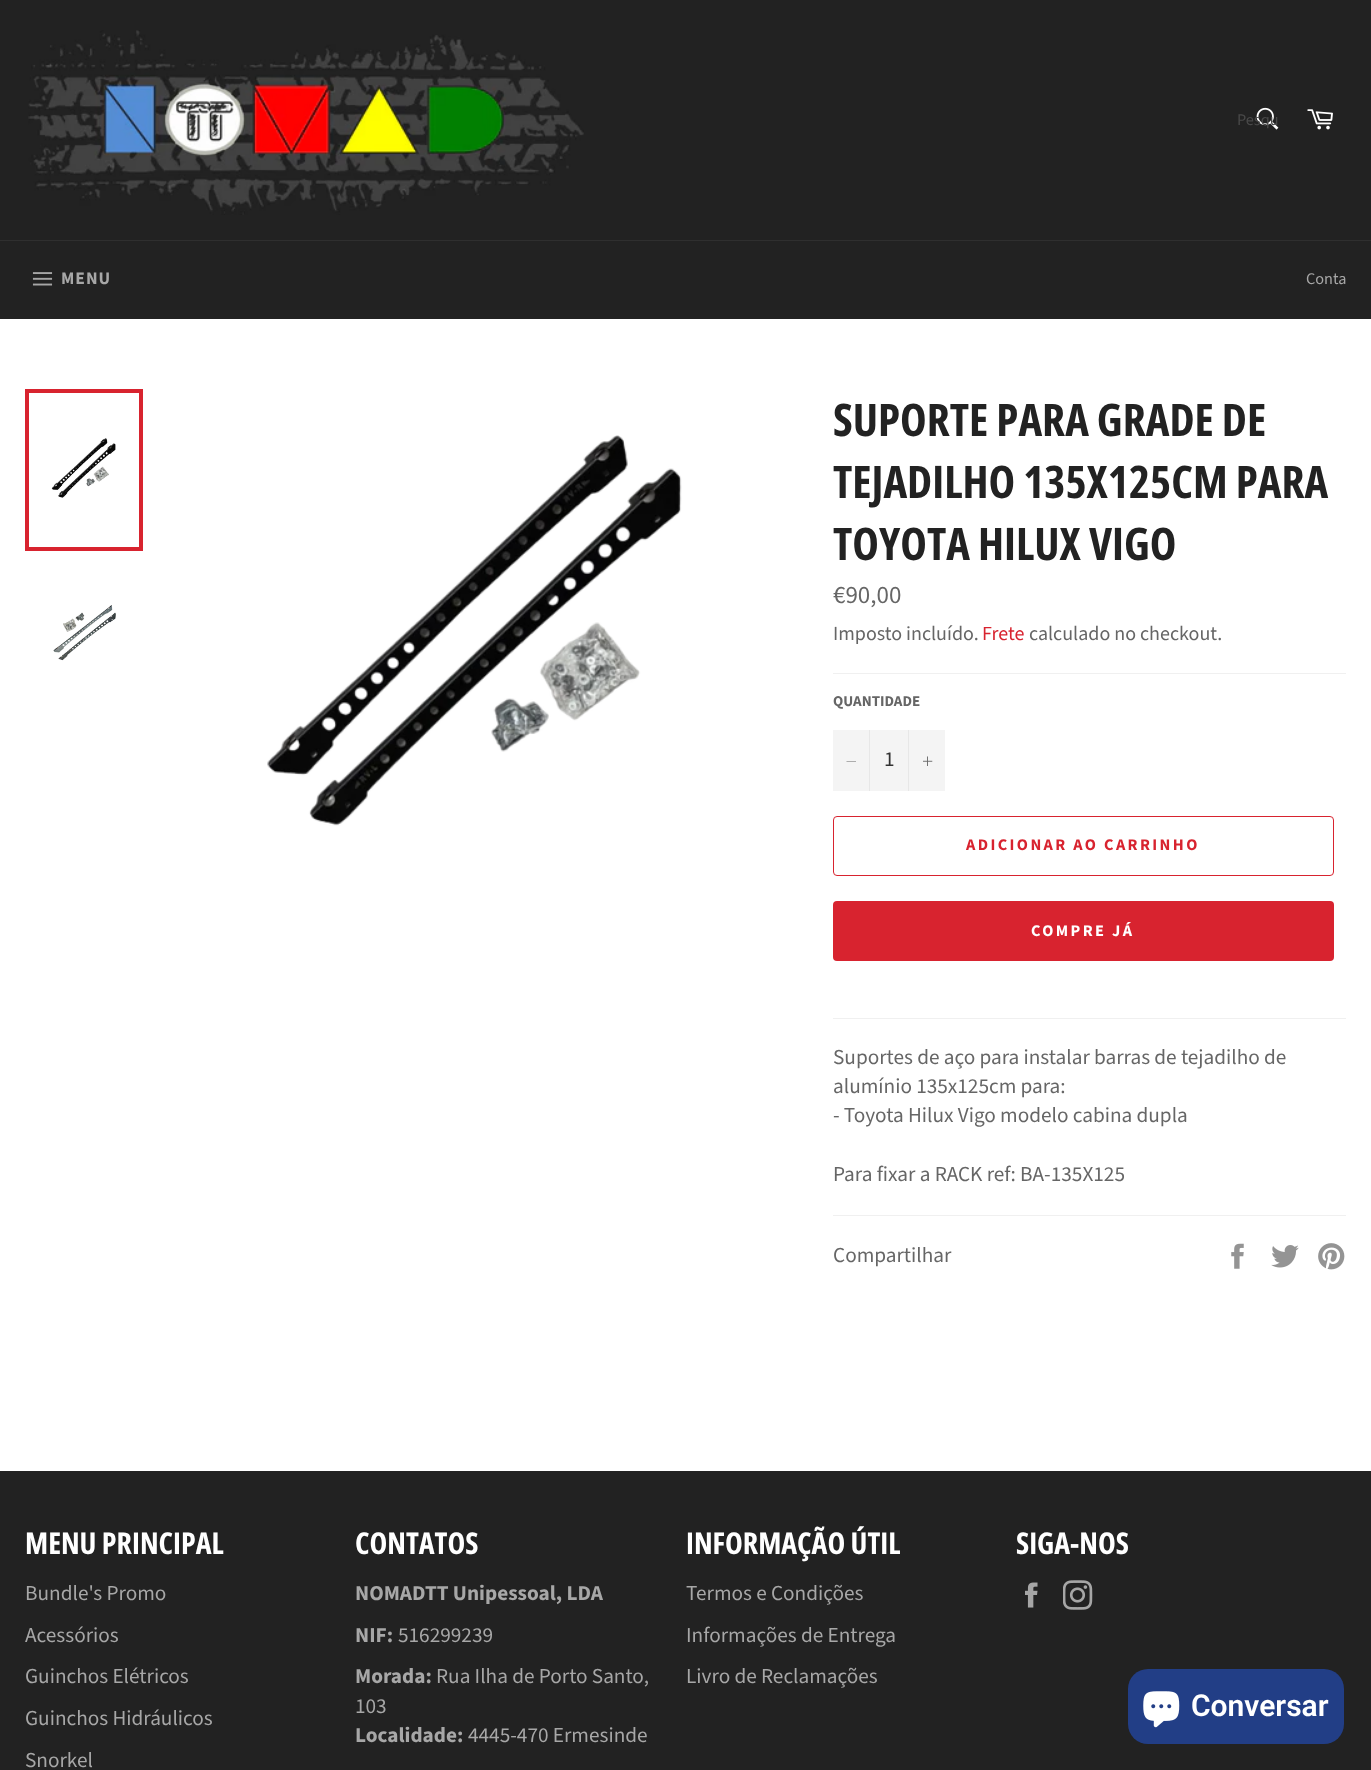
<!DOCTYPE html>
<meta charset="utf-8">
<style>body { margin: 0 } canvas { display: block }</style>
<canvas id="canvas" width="1371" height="1770"></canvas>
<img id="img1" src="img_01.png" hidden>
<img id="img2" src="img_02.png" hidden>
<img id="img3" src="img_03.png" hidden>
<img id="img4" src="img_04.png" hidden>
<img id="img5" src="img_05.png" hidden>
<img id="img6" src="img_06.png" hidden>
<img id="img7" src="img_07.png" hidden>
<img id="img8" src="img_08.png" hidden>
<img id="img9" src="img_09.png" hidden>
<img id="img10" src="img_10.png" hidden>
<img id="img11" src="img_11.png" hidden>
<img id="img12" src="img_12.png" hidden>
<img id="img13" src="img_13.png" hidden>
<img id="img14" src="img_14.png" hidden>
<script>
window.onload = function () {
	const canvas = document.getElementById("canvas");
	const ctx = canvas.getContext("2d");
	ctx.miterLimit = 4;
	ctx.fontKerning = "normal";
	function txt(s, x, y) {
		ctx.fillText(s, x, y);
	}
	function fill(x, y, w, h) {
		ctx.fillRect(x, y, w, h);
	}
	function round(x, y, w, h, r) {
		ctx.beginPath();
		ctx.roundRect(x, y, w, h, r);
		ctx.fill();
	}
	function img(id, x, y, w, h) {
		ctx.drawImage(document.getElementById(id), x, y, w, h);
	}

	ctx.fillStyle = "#222222";
	fill(0, 0, 1371, 1770);
	img("img1", 28, 30, 556, 185);
	img("img2", 1256, 107, 23, 23);
	img("img3", 1307, 109, 26, 21);
	ctx.fillStyle = "#2F2F2F";
	fill(0, 240, 1371, 1);
	img("img4", 32, 272, 21, 14);
	ctx.fillStyle = "#FFFFFF";
	fill(0, 319, 1371, 1152);
	img("img5", 51, 438, 65, 60);
	ctx.strokeStyle = "#D8232F";
	ctx.lineWidth = 4;
	ctx.strokeRect(27, 391, 114, 158);
	img("img6", 53, 605, 63, 56);
	img("img7", 267, 435, 415, 391);
	ctx.fillStyle = "#F0F0F0";
	fill(833, 673, 513, 1);
	ctx.fillStyle = "#F4F4F4";
	fill(833, 730, 112, 61);
	ctx.fillStyle = "#E7E7E7";
	fill(869, 730, 1, 61);
	ctx.fillStyle = "#666666";
	ctx.beginPath();
	ctx.moveTo(856, 761);
	ctx.lineTo(856, 761.5);
	ctx.lineTo(846.5, 761.5);
	ctx.lineTo(846.5, 761);
	ctx.closePath();
	ctx.fill("evenodd");
	ctx.fillStyle = "#E7E7E7";
	fill(908, 730, 1, 61);
	img("img8", 923, 756, 10, 10);
	ctx.beginPath();
	ctx.roundRect(833.5, 816.5, 500, 59, 3.5);
	ctx.lineWidth = 1;
	ctx.stroke();
	ctx.fillStyle = "#D8232F";
	round(833, 901, 501, 60, 4);
	ctx.fillStyle = "#F0F0F0";
	fill(833, 1018, 513, 1);
	fill(833, 1215, 513, 1);
	img("img9", 1231, 1243, 13, 26);
	img("img10", 1271, 1245, 28, 23);
	img("img11", 1318, 1243, 27, 27);
	img("img12", 1025, 1582, 13, 26);
	img("img13", 1063, 1580, 30, 30);
	ctx.fillStyle = "#223E86";
	round(1128, 1669, 216, 75, 20);
	img("img14", 1143, 1691, 37, 37);
	ctx.font = "16.25px Source Sans Pro";
	ctx.fillStyle = "#494949";
	txt("Pesqu", 1237, 125);
	ctx.letterSpacing = "1px";
	ctx.font = "bold 17.5px Source Sans Pro";
	ctx.fillStyle = "#A7A7A7";
	txt("MENU", 61, 284);
	ctx.letterSpacing = "0px";
	ctx.font = "16.25px Source Sans Pro";
	txt("Conta", 1306, 284);
	ctx.font = "bold 45px Open Sans Condensed";
	ctx.fillStyle = "#222222";
	txt("SUPORTE PARA GRADE DE", 833, 436);
	txt("TEJADILHO 135X125CM PARA", 833, 498);
	txt("TOYOTA HILUX VIGO", 833, 560);
	ctx.font = "25px Source Sans Pro";
	ctx.fillStyle = "#666666";
	txt("€90,00", 833, 603);
	ctx.font = "20px Source Sans Pro";
	txt("Imposto incluído.", 833, 640);
	ctx.fillStyle = "#D8232F";
	txt("Frete", 982, 640);
	ctx.fillStyle = "#666666";
	txt("calculado no checkout.", 1029, 640);
	ctx.font = "bold 15px Source Sans Pro";
	txt("QUANTIDADE", 833, 706);
	ctx.font = "21.25px Source Sans Pro";
	ctx.fillStyle = "#333333";
	txt("1", 884, 766);
	ctx.letterSpacing = "2.4px";
	ctx.font = "bold 16.25px Source Sans Pro";
	ctx.fillStyle = "#D8232F";
	txt("ADICIONAR AO CARRINHO", 966, 850);
	ctx.fillStyle = "#FFFFFF";
	txt("COMPRE JÁ", 1031, 936);
	ctx.letterSpacing = "0px";
	ctx.font = "21.25px Source Sans Pro";
	ctx.fillStyle = "#666666";
	txt("Suportes de aço para instalar barras de tejadilho de", 833, 1064);
	txt("alumínio 135x125cm para:", 833, 1093);
	txt("- Toyota Hilux Vigo modelo cabina dupla", 833, 1122);
	txt("Para fixar a RACK ref: BA-135X125", 833, 1181);
	txt("Compartilhar", 833, 1262);
	ctx.font = "bold 30px Open Sans Condensed";
	ctx.fillStyle = "#FFFFFF";
	txt("MENU PRINCIPAL", 25, 1554);
	ctx.font = "21.25px Source Sans Pro";
	ctx.fillStyle = "#A7A7A7";
	txt("Bundle's Promo", 25, 1600);
	txt("Acessórios", 25, 1642);
	txt("Guinchos Elétricos", 25, 1683);
	txt("Guinchos Hidráulicos", 25, 1725);
	txt("Snorkel", 25, 1767);
	ctx.font = "bold 30px Open Sans Condensed";
	ctx.fillStyle = "#FFFFFF";
	txt("CONTATOS", 355, 1554);
	ctx.font = "bold 21.25px Source Sans Pro";
	ctx.fillStyle = "#A7A7A7";
	txt("NOMADTT Unipessoal, LDA", 355, 1600);
	txt("NIF:", 355, 1642);
	ctx.font = "21.25px Source Sans Pro";
	txt("516299239", 398, 1642);
	ctx.font = "bold 21.25px Source Sans Pro";
	txt("Morada:", 355, 1683);
	ctx.font = "21.25px Source Sans Pro";
	txt("Rua Ilha de Porto Santo,", 436, 1683);
	txt("103", 355, 1713);
	ctx.font = "bold 21.25px Source Sans Pro";
	txt("Localidade:", 355, 1742);
	ctx.font = "21.25px Source Sans Pro";
	txt("4445-470 Ermesinde", 468, 1742);
	ctx.font = "bold 30px Open Sans Condensed";
	ctx.fillStyle = "#FFFFFF";
	txt("INFORMAÇÃO ÚTIL", 686, 1554);
	ctx.font = "21.25px Source Sans Pro";
	ctx.fillStyle = "#A7A7A7";
	txt("Termos e Condições", 686, 1600);
	txt("Informações de Entrega", 686, 1642);
	txt("Livro de Reclamações", 686, 1683);
	ctx.font = "bold 30px Open Sans Condensed";
	ctx.fillStyle = "#FFFFFF";
	txt("SIGA-NOS", 1016, 1554);
	ctx.font = "600 30px Roboto";
	txt("Conversar", 1191, 1716);
};
</script>
